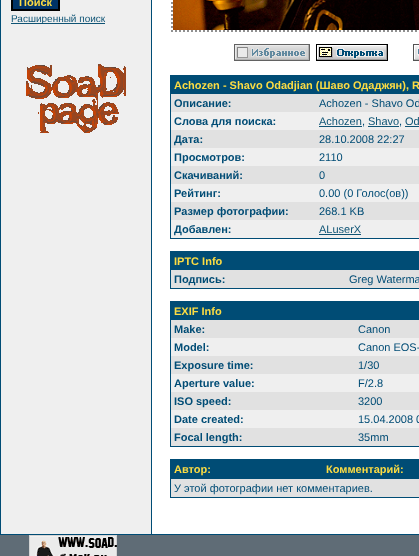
<!DOCTYPE html>
<meta charset="utf-8">
<style>body { margin: 0 } canvas { display: block }</style>
<canvas id="canvas" width="419" height="556"></canvas>
<img id="img1" src="img_01.png" hidden>
<img id="img2" src="img_02.png" hidden>
<img id="img3" src="img_03.png" hidden>
<img id="img4" src="img_04.png" hidden>
<img id="img5" src="img_05.png" hidden>
<img id="img6" src="img_06.png" hidden>
<script>
window.onload = function () {
	const canvas = document.getElementById("canvas");
	const ctx = canvas.getContext("2d");
	ctx.miterLimit = 4;
	ctx.fontKerning = "normal";
	function txt(s, x, y) {
		ctx.fillText(s, x, y);
	}
	function fill(x, y, w, h) {
		ctx.fillRect(x, y, w, h);
	}
	function img(id, x, y, w, h) {
		ctx.drawImage(document.getElementById(id), x, y, w, h);
	}

	ctx.fillStyle = "#5F6C76";
	fill(0, 0, 419, 556);
	ctx.fillStyle = "#004C75";
	fill(0, 0, 419, 535);
	ctx.fillStyle = "#FFFFFF";
	fill(152, 0, 267, 534);
	ctx.fillStyle = "#EFEFEF";
	fill(1, 0, 150, 534);
	ctx.fillStyle = "#003366";
	ctx.beginPath();
	ctx.rect(12, -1, 47, 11);
	ctx.fill();
	ctx.strokeStyle = "#000000";
	ctx.lineWidth = 2;
	ctx.stroke();
	ctx.fillStyle = "#0F5475";
	fill(11, 23, 94, 1);
	img("img1", 26, 64, 100, 69);
	ctx.beginPath();
	ctx.moveTo(171, 31);
	ctx.lineTo(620, 31);
	ctx.strokeStyle = "#909090";
	ctx.setLineDash([2, 2]);
	ctx.stroke();
	ctx.beginPath();
	ctx.moveTo(172, -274);
	ctx.lineTo(172, 32);
	ctx.stroke();
	img("img2", 173, 0, 246, 30);
	img("img3", 234, 44, 76, 17);
	img("img4", 316, 44, 72, 17);
	img("img5", 413, 44, 6, 17);
	ctx.fillStyle = "#004C75";
	fill(170, 75, 249, 164);
	ctx.fillStyle = "#E1E1E1";
	fill(171, 94, 248, 18);
	ctx.fillStyle = "#EFEFEF";
	fill(171, 112, 248, 18);
	ctx.fillStyle = "#0F5475";
	fill(319, 126, 43, 1);
	fill(368, 126, 31, 1);
	fill(405, 126, 14, 1);
	ctx.fillStyle = "#E1E1E1";
	fill(171, 130, 248, 18);
	ctx.fillStyle = "#EFEFEF";
	fill(171, 148, 248, 18);
	ctx.fillStyle = "#E1E1E1";
	fill(171, 166, 248, 18);
	ctx.fillStyle = "#EFEFEF";
	fill(171, 184, 248, 18);
	ctx.fillStyle = "#E1E1E1";
	fill(171, 202, 248, 18);
	ctx.fillStyle = "#EFEFEF";
	fill(171, 220, 248, 18);
	ctx.fillStyle = "#0F5475";
	fill(319, 234, 42, 1);
	ctx.fillStyle = "#004C75";
	fill(170, 251, 249, 38);
	ctx.fillStyle = "#E1E1E1";
	fill(171, 270, 248, 18);
	ctx.fillStyle = "#004C75";
	fill(170, 301, 249, 146);
	ctx.fillStyle = "#E1E1E1";
	fill(171, 320, 248, 18);
	ctx.fillStyle = "#EFEFEF";
	fill(171, 338, 248, 18);
	ctx.fillStyle = "#E1E1E1";
	fill(171, 356, 248, 18);
	ctx.fillStyle = "#EFEFEF";
	fill(171, 374, 248, 18);
	ctx.fillStyle = "#E1E1E1";
	fill(171, 392, 248, 18);
	ctx.fillStyle = "#EFEFEF";
	fill(171, 410, 248, 18);
	ctx.fillStyle = "#E1E1E1";
	fill(171, 428, 248, 18);
	ctx.fillStyle = "#004C75";
	fill(170, 459, 249, 39);
	ctx.fillStyle = "#E1E1E1";
	fill(171, 479, 248, 18);
	img("img6", 29, 535, 88, 21);
	ctx.font = "bold 11px Liberation Sans";
	ctx.fillStyle = "#FCDC43";
	txt("Поиск", 19, 6);
	ctx.font = "10px Liberation Sans";
	ctx.fillStyle = "#0F5475";
	txt("Расширенный поиск", 11, 22);
	ctx.font = "bold 11px Liberation Sans";
	ctx.fillStyle = "#FCDC43";
	txt("Achozen - Shavo Odadjian (Шаво Одаджян), R", 174, 89);
	ctx.fillStyle = "#004C75";
	txt("Описание:", 174, 107);
	ctx.font = "11px Liberation Sans";
	txt("Achozen - Shavo Od", 319, 107);
	ctx.font = "bold 11px Liberation Sans";
	txt("Слова для поиска:", 174, 125);
	ctx.font = "11px Liberation Sans";
	ctx.fillStyle = "#0F5475";
	txt("Achozen", 319, 125);
	ctx.fillStyle = "#004C75";
	txt(",", 362, 125);
	ctx.fillStyle = "#0F5475";
	txt("Shavo", 368, 125);
	ctx.fillStyle = "#004C75";
	txt(",", 399, 125);
	ctx.fillStyle = "#0F5475";
	txt("Od", 405, 125);
	ctx.font = "bold 11px Liberation Sans";
	ctx.fillStyle = "#004C75";
	txt("Дата:", 174, 143);
	ctx.font = "11px Liberation Sans";
	txt("28.10.2008 22:27", 319, 143);
	ctx.font = "bold 11px Liberation Sans";
	txt("Просмотров:", 174, 161);
	ctx.font = "11px Liberation Sans";
	txt("2110", 319, 161);
	ctx.font = "bold 11px Liberation Sans";
	txt("Скачиваний:", 174, 179);
	ctx.font = "11px Liberation Sans";
	txt("0", 319, 179);
	ctx.font = "bold 11px Liberation Sans";
	txt("Рейтинг:", 174, 197);
	ctx.font = "11px Liberation Sans";
	txt("0.00 (0 Голос(ов))", 319, 197);
	ctx.font = "bold 11px Liberation Sans";
	txt("Размер фотографии:", 174, 215);
	ctx.font = "11px Liberation Sans";
	txt("268.1 KB", 319, 215);
	ctx.font = "bold 11px Liberation Sans";
	txt("Добавлен:", 174, 233);
	ctx.font = "11px Liberation Sans";
	ctx.fillStyle = "#0F5475";
	txt("ALuserX", 319, 233);
	ctx.font = "bold 11px Liberation Sans";
	ctx.fillStyle = "#FCDC43";
	txt("IPTC Info", 174, 265);
	ctx.fillStyle = "#004C75";
	txt("Подпись:", 174, 283);
	ctx.font = "11px Liberation Sans";
	txt("Greg Waterma", 349, 283);
	ctx.font = "bold 11px Liberation Sans";
	ctx.fillStyle = "#FCDC43";
	txt("EXIF Info", 174, 315);
	ctx.fillStyle = "#004C75";
	txt("Make:", 174, 333);
	ctx.font = "11px Liberation Sans";
	txt("Canon", 358, 333);
	ctx.font = "bold 11px Liberation Sans";
	txt("Model:", 174, 351);
	ctx.font = "11px Liberation Sans";
	txt("Canon EOS-", 358, 351);
	ctx.font = "bold 11px Liberation Sans";
	txt("Exposure time:", 174, 369);
	ctx.font = "11px Liberation Sans";
	txt("1/30", 358, 369);
	ctx.font = "bold 11px Liberation Sans";
	txt("Aperture value:", 174, 387);
	ctx.font = "11px Liberation Sans";
	txt("F/2.8", 358, 387);
	ctx.font = "bold 11px Liberation Sans";
	txt("ISO speed:", 174, 405);
	ctx.font = "11px Liberation Sans";
	txt("3200", 358, 405);
	ctx.font = "bold 11px Liberation Sans";
	txt("Date created:", 174, 423);
	ctx.font = "11px Liberation Sans";
	txt("15.04.2008 0", 358, 423);
	ctx.font = "bold 11px Liberation Sans";
	txt("Focal length:", 174, 441);
	ctx.font = "11px Liberation Sans";
	txt("35mm", 358, 441);
	ctx.font = "bold 11px Liberation Sans";
	ctx.fillStyle = "#FCDC43";
	txt("Автор:", 174, 473);
	txt("Комментарий:", 326, 473);
	ctx.font = "11px Liberation Sans";
	ctx.fillStyle = "#004C75";
	txt("У этой фотографии нет комментариев.", 174, 492);
};
</script>
